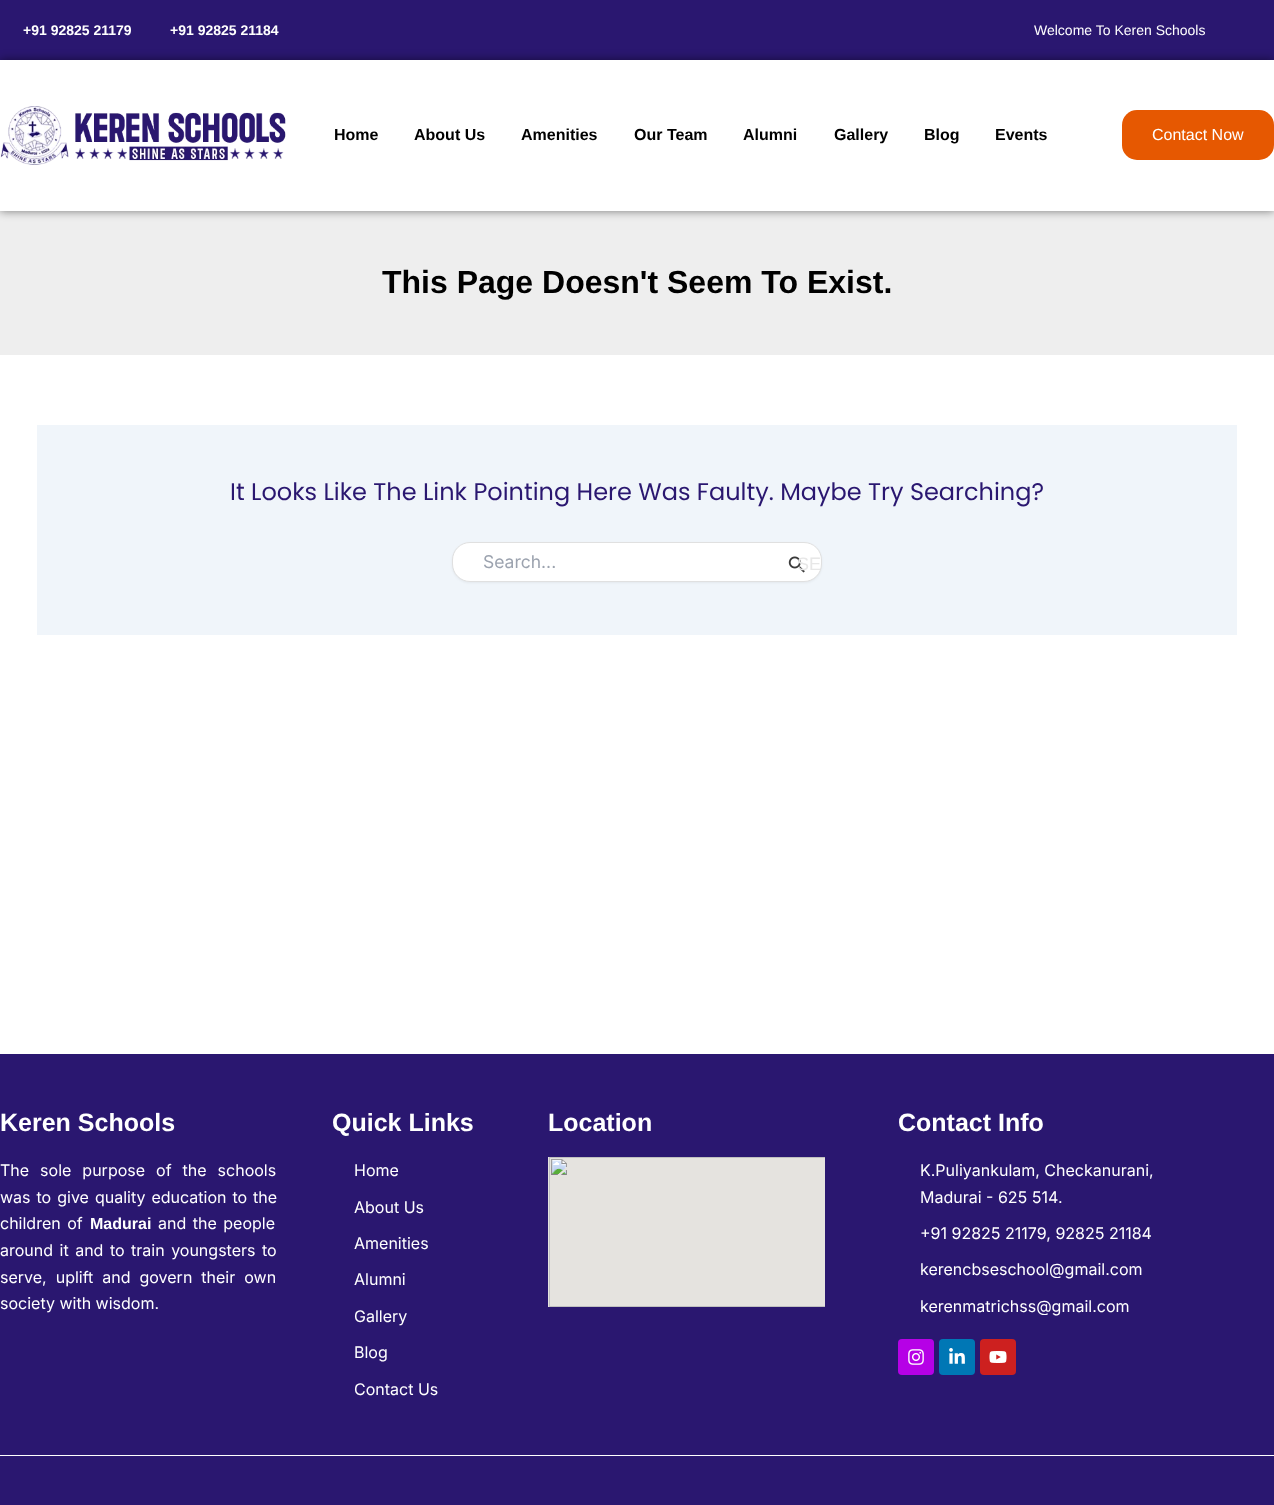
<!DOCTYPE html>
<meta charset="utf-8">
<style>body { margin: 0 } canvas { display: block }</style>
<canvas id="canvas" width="1274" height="1505"></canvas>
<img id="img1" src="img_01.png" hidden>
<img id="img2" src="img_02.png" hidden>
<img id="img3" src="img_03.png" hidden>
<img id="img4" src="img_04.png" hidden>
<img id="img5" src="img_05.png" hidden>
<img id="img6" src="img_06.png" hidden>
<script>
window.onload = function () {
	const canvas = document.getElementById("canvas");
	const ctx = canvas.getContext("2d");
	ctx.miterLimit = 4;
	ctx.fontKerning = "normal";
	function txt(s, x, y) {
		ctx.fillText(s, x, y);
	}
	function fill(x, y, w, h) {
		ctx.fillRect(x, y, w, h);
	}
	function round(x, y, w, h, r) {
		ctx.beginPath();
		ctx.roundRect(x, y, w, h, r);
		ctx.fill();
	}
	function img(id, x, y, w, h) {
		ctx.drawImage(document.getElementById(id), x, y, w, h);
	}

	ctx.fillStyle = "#FFFFFF";
	fill(0, 0, 1274, 1505);
	ctx.fillStyle = "#2A1770";
	fill(0, 0, 1274, 60);
	ctx.fillStyle = "#EEEEEE";
	fill(0, 211, 1274, 144);
	ctx.save();
	ctx.beginPath();
	ctx.moveTo(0, 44);
	ctx.lineTo(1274, 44);
	ctx.lineTo(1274, 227);
	ctx.lineTo(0, 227);
	ctx.closePath();
	ctx.moveTo(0, 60);
	ctx.lineTo(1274, 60);
	ctx.lineTo(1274, 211);
	ctx.lineTo(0, 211);
	ctx.closePath();
	ctx.clip("evenodd");
	ctx.fillStyle = "rgba(0, 0, 0, 0.5)";
	ctx.filter = "blur(5px)";
	ctx.beginPath();
	ctx.rect(0, 60, 1274, 151);
	ctx.fill();
	ctx.filter = "none";
	ctx.restore();
	img("img1", 0, 106, 286, 59);
	ctx.fillStyle = "#E65801";
	round(1122, 110, 152, 50, 15);
	ctx.fillStyle = "#F0F5FA";
	fill(37, 425, 1200, 210);
	ctx.fillStyle = "rgba(0, 0, 0, 0.05)";
	ctx.filter = "blur(1px)";
	ctx.beginPath();
	ctx.roundRect(452, 543, 370, 40, 18);
	ctx.fill();
	ctx.filter = "none";
	ctx.fillStyle = "#FFFFFF";
	ctx.beginPath();
	ctx.roundRect(452.5, 542.5, 369, 39, 17.5);
	ctx.fill();
	ctx.strokeStyle = "#E0E0E0";
	ctx.stroke();
	img("img2", 788, 556, 17, 17);
	ctx.fillStyle = "#2A1770";
	fill(0, 1054, 1274, 401);
	img("img3", 548, 1157, 277, 150);
	ctx.fillStyle = "#B601E6";
	round(898, 1339, 36, 36, 4);
	img("img4", 908, 1349, 16, 16);
	ctx.fillStyle = "#0077B5";
	round(939, 1339, 36, 36, 4);
	img("img5", 949, 1348, 16, 16);
	ctx.fillStyle = "#CD201F";
	round(980, 1339, 36, 36, 4);
	img("img6", 989, 1351, 18, 12);
	ctx.fillStyle = "#2A1770";
	fill(0, 1456, 1274, 49);
	ctx.font = "bold 14px Liberation Sans";
	ctx.fillStyle = "#FFFFFF";
	txt("+91 92825 21179", 23, 35);
	txt("+91 92825 21184", 170, 35);
	ctx.font = "14px Liberation Sans";
	txt("Welcome To Keren Schools", 1034, 35);
	ctx.font = "bold 16px Liberation Sans";
	ctx.fillStyle = "#000000";
	txt("Home", 334, 140);
	txt("About Us", 414, 140);
	txt("Amenities", 521, 140);
	txt("Our Team", 634, 140);
	txt("Alumni", 743, 140);
	txt("Gallery", 834, 140);
	txt("Blog", 924, 140);
	txt("Events", 995, 140);
	ctx.font = "16px Liberation Sans";
	ctx.fillStyle = "#FFFFFF";
	txt("Contact Now", 1152, 140);
	ctx.font = "bold 32px Liberation Sans";
	ctx.fillStyle = "#000000";
	txt("This Page Doesn't Seem To Exist.", 382, 293);
	ctx.font = "24px Poppins";
	ctx.fillStyle = "#2A1770";
	txt("It Looks Like The Link Pointing Here Was Faulty. Maybe Try Searching?", 230, 500);
	ctx.font = "17.5px Inter";
	ctx.fillStyle = "#9CA3AF";
	txt("Search...", 483, 568);
	ctx.font = "18px Liberation Sans";
	ctx.fillStyle = "#E7E7E7";
	txt("SE", 797, 570);
	ctx.font = "bold 25px Liberation Sans";
	ctx.fillStyle = "#FFFFFF";
	txt("Keren Schools", 0, 1131);
	ctx.wordSpacing = "6.5px";
	ctx.font = "16px Inter";
	txt("The sole purpose of the schools", 0, 1176);
	ctx.wordSpacing = "1.5px";
	txt("was to give quality education to the", 0, 1203);
	ctx.wordSpacing = "2px";
	txt("children of", 0, 1229);
	ctx.wordSpacing = "0px";
	ctx.font = "bold 16px Liberation Sans";
	txt("Madurai", 90, 1229);
	ctx.wordSpacing = "2px";
	ctx.font = "16px Inter";
	txt("and the people", 158, 1229);
	txt("around it and to train youngsters to", 0, 1256);
	ctx.wordSpacing = "4.5px";
	txt("serve, uplift and govern their own", 0, 1283);
	ctx.wordSpacing = "0px";
	txt("society with wisdom.", 0, 1309);
	ctx.font = "bold 25px Liberation Sans";
	txt("Quick Links", 332, 1131);
	ctx.font = "16px Inter";
	txt("Home", 354, 1176);
	txt("About Us", 354, 1213);
	txt("Amenities", 354, 1249);
	txt("Alumni", 354, 1285);
	txt("Gallery", 354, 1322);
	txt("Blog", 354, 1358);
	txt("Contact Us", 354, 1395);
	ctx.font = "bold 25px Liberation Sans";
	txt("Location", 548, 1131);
	txt("Contact Info", 898, 1131);
	ctx.font = "16px Inter";
	txt("K.Puliyankulam, Checkanurani,", 920, 1176);
	txt("Madurai - 625 514.", 920, 1203);
	txt("+91 92825 21179, 92825 21184", 920, 1239);
	txt("kerencbseschool@gmail.com", 920, 1275);
	txt("kerenmatrichss@gmail.com", 920, 1312);
};
</script>
